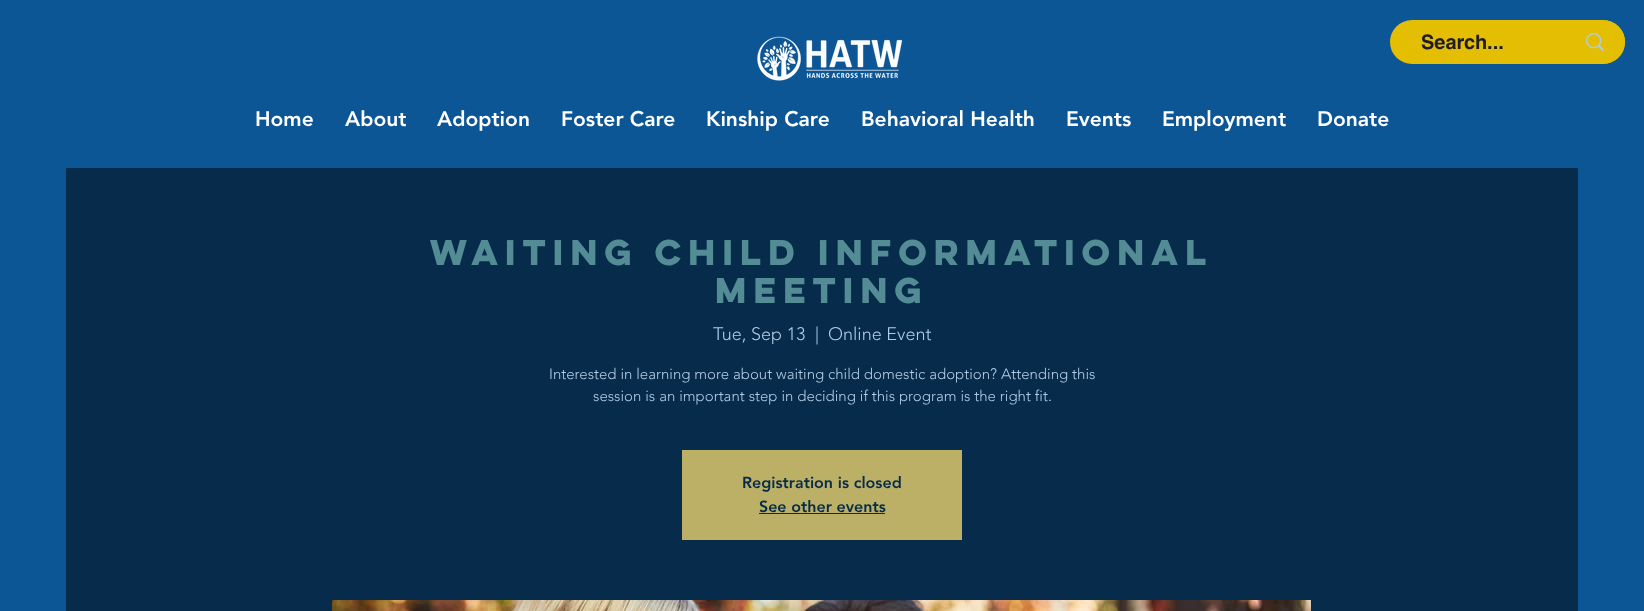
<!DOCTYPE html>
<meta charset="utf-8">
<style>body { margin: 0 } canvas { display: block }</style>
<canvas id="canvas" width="1644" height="611"></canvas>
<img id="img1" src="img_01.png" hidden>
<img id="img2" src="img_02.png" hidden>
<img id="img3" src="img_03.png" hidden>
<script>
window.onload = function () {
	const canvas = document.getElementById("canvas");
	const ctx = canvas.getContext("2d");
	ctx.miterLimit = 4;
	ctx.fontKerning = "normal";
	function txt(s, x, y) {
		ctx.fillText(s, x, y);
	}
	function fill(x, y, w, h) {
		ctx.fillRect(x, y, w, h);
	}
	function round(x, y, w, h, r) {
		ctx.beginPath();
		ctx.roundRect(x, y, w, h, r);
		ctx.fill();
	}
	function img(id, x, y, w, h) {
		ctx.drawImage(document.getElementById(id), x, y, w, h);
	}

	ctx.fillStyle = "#0D5696";
	fill(0, 0, 1644, 611);
	img("img1", 757, 36, 146, 45);
	ctx.fillStyle = "#E3BE02";
	round(1390, 20, 235, 44, 22);
	ctx.beginPath();
	ctx.roundRect(1565, 20, 60, 44, [0, 22, 22, 0]);
	ctx.fill();
	img("img2", 1586, 33, 18, 18);
	ctx.fillStyle = "#072B4B";
	fill(66, 168, 1512, 443);
	ctx.fillStyle = "#BCB067";
	fill(682, 450, 280, 90);
	ctx.fillStyle = "#072B4B";
	fill(759, 513, 126, 1);
	img("img3", 332, 600, 979, 11);
	ctx.font = "bold 20px helvetica";
	ctx.fillStyle = "#201D28";
	txt("Search...", 1421, 49);
	ctx.font = "900 21px 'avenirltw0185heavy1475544'";
	ctx.fillStyle = "#FFFFFF";
	txt("Home", 255, 126);
	txt("About", 345, 126);
	txt("Adoption", 437, 126);
	txt("Foster Care", 561, 126);
	txt("Kinship Care", 706, 126);
	txt("Behavioral Health", 861, 126);
	txt("Events", 1066, 126);
	txt("Employment", 1162, 126);
	txt("Donate", 1317, 126);
	ctx.font = "bold 32px 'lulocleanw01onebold'";
	ctx.fillStyle = "#538C95";
	txt("Waiting Child Informational", 430, 265);
	txt("Meeting", 715, 303);
	ctx.font = "300 18px 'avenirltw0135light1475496'";
	ctx.fillStyle = "#B1CCE5";
	txt("Tue, Sep 13", 713, 340);
	txt("|", 815, 340);
	txt("Online Event", 828, 340);
	ctx.font = "300 15px 'avenirltw0135light1475496'";
	txt("Interested in learning more about waiting child domestic adoption? Attending this", 549, 379);
	txt("session is an important step in deciding if this program is the right fit.", 593, 401);
	ctx.font = "900 16px 'avenirltw0185heavy1475544'";
	ctx.fillStyle = "#072B4B";
	txt("Registration is closed", 742, 488);
	txt("See other events", 759, 512);
};
</script>
